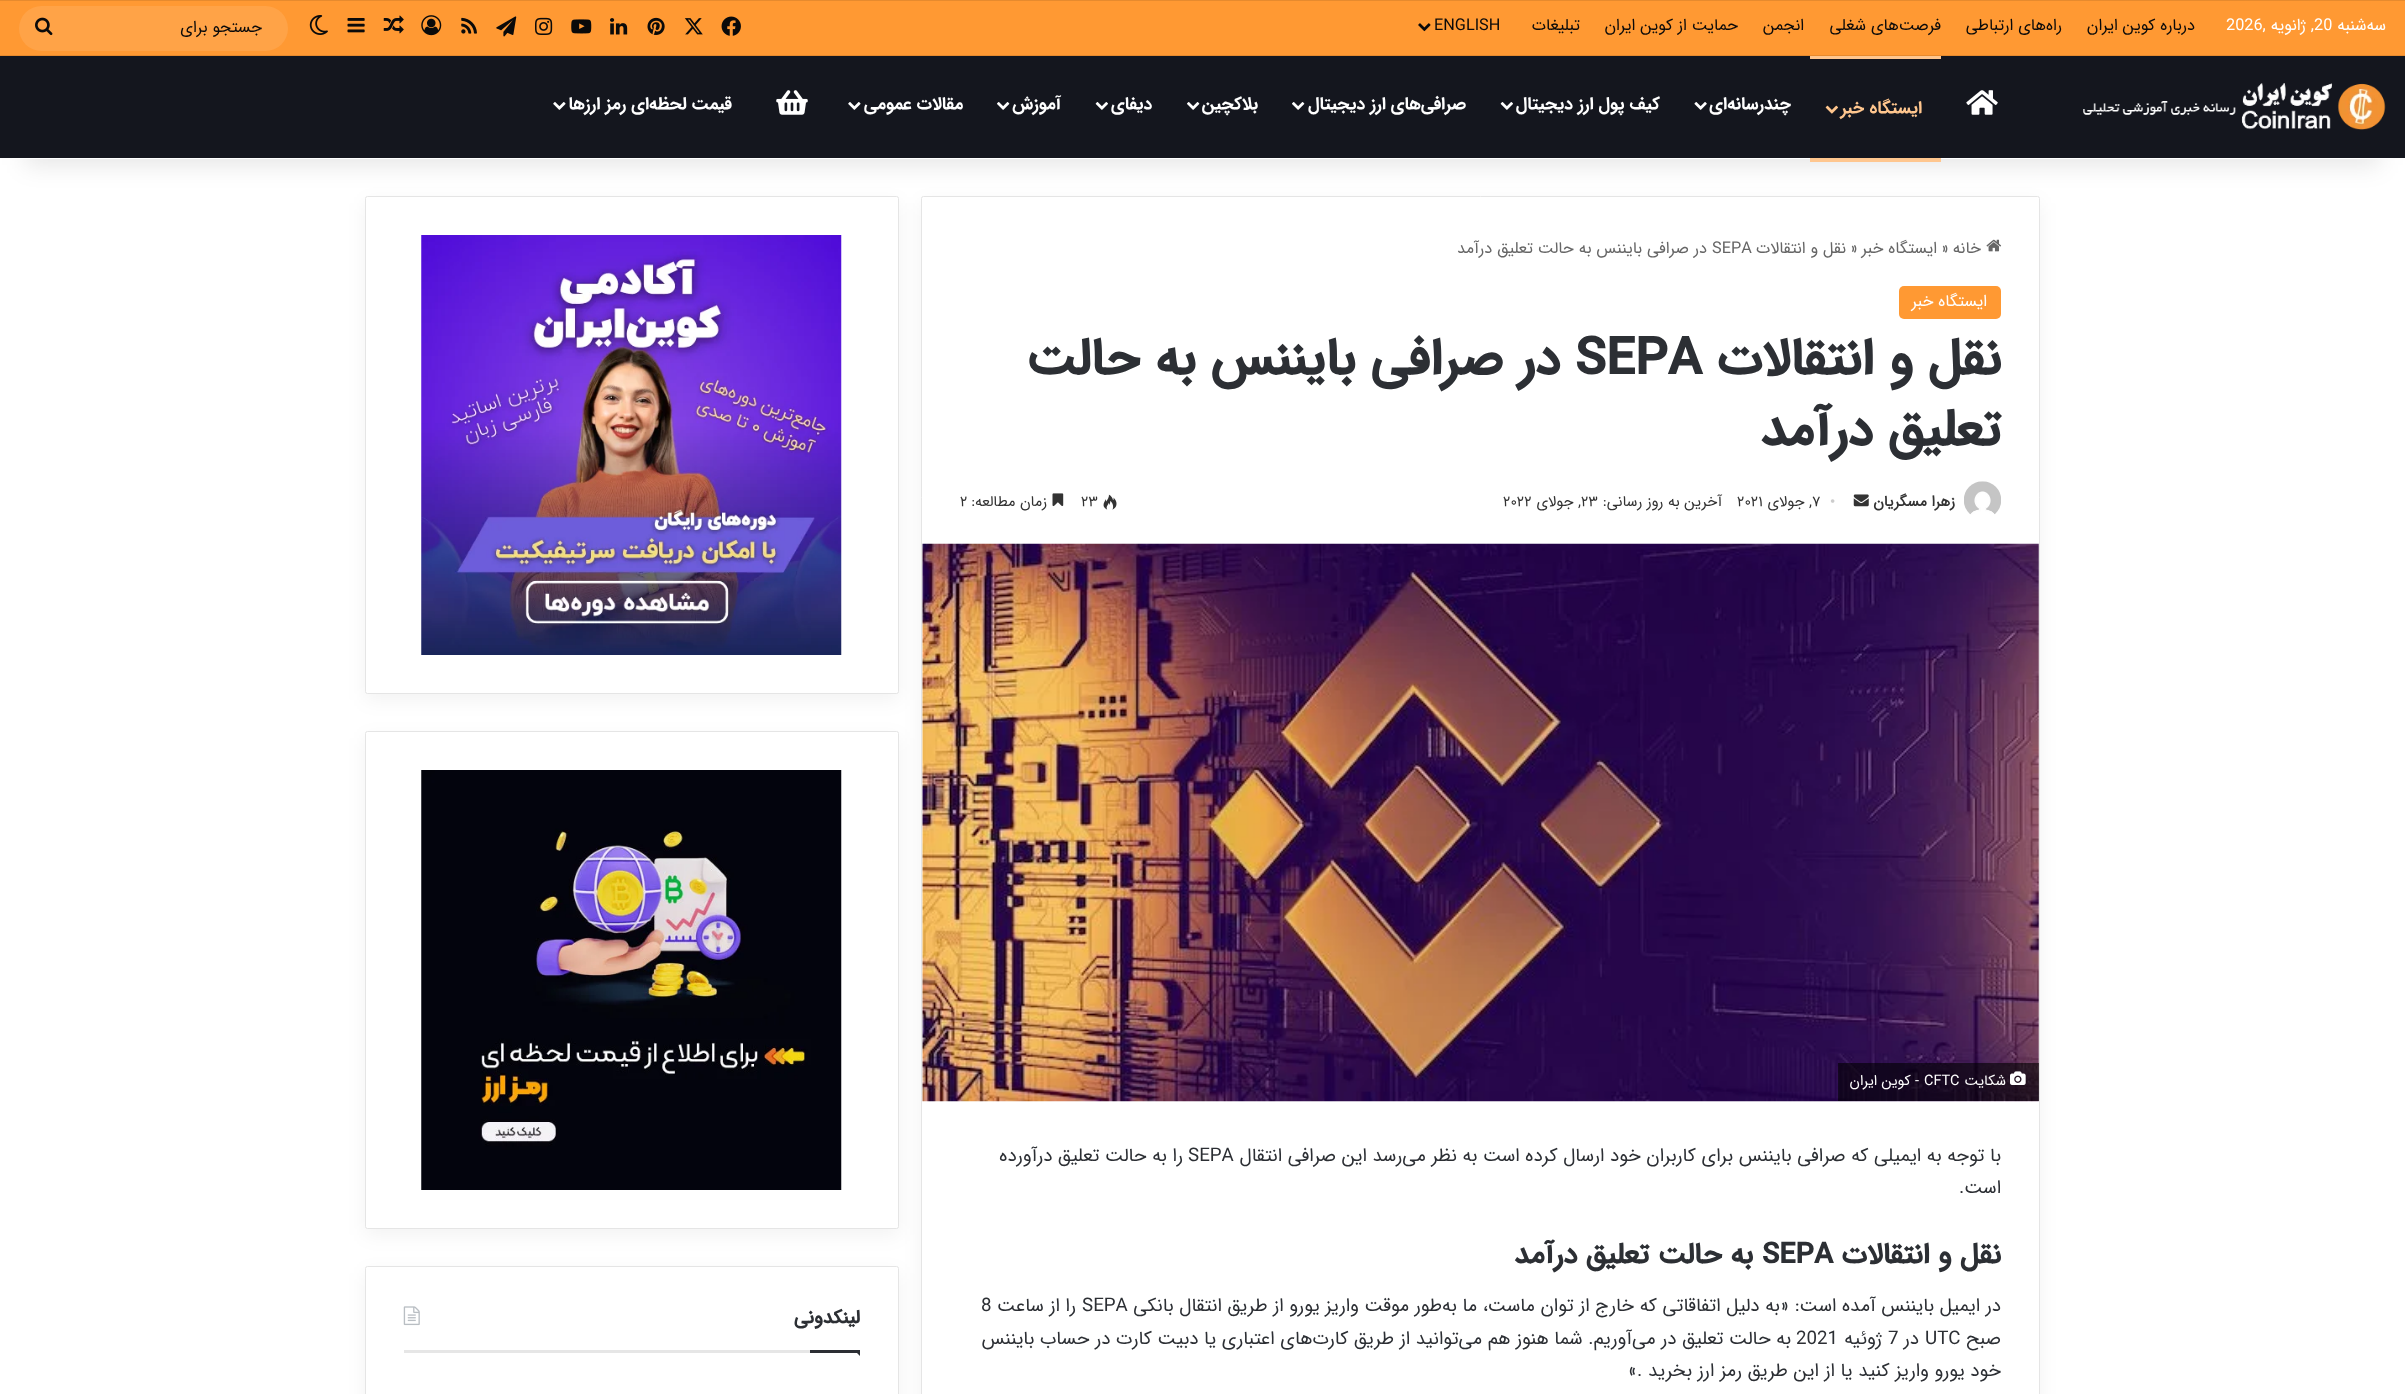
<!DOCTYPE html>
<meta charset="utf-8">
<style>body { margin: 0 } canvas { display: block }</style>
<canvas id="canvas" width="2405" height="1394"></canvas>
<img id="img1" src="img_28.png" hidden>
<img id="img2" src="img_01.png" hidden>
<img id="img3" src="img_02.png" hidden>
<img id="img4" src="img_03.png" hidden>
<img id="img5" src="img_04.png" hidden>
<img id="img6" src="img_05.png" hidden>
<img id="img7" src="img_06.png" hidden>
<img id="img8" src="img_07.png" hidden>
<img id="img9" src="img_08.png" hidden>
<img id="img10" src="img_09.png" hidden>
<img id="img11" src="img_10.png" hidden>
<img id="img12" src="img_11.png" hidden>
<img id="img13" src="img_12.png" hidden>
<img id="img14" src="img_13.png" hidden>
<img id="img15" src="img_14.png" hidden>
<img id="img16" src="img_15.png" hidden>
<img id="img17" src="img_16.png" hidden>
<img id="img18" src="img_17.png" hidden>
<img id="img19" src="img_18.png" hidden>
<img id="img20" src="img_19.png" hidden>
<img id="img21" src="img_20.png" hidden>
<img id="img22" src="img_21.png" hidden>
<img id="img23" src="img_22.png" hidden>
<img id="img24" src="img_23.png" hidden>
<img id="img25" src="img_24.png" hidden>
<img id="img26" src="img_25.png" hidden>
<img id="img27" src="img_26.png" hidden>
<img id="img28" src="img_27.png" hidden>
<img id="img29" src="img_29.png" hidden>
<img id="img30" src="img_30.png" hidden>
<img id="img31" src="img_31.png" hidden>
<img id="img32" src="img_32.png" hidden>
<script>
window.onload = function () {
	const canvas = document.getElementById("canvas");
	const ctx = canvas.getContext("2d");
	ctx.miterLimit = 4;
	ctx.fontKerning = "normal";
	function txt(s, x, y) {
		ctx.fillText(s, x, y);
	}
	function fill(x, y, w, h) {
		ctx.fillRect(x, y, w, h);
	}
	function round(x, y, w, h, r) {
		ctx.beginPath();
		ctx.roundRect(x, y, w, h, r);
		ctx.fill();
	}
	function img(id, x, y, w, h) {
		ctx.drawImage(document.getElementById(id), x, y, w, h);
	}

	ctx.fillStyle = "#FFFFFF";
	fill(0, 0, 2405, 1394);
	ctx.fillStyle = "rgba(0, 0, 0, 0.05)";
	ctx.filter = "blur(9.5px)";
	ctx.beginPath();
	ctx.roundRect(921, 203, 1119, 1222, 2.5);
	ctx.fill();
	ctx.filter = "none";
	ctx.fillStyle = "#FFFFFF";
	ctx.beginPath();
	ctx.roundRect(921.5, 196.5, 1118, 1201, 2);
	ctx.fill();
	ctx.strokeStyle = "#E5E5E5";
	ctx.stroke();
	img("img1", 922, 543, 1117, 559);
	ctx.fillStyle = "rgba(0, 0, 0, 0.05)";
	ctx.filter = "blur(9.5px)";
	ctx.beginPath();
	ctx.roundRect(365, 203, 534, 497, 2.5);
	ctx.fill();
	ctx.filter = "none";
	ctx.fillStyle = "#FFFFFF";
	ctx.beginPath();
	ctx.roundRect(365.5, 196.5, 533, 497, 2);
	ctx.fill();
	ctx.stroke();
	ctx.fillStyle = "rgba(0, 0, 0, 0.1)";
	ctx.filter = "blur(12.5px)";
	ctx.beginPath();
	ctx.rect(25, 56, 2355, 109);
	ctx.fill();
	ctx.filter = "none";
	ctx.fillStyle = "#FFFFFF";
	fill(12, 158, 2381, 1);
	ctx.fillStyle = "#FF9933";
	fill(0, 1, 2405, 54);
	ctx.fillStyle = "#E68A2E";
	fill(0, 0, 2405, 1);
	fill(0, 55, 2405, 1);
	img("img2", 1418, 23, 13, 9);
	img("img3", 721, 16, 20, 20);
	img("img4", 684, 18, 19, 17);
	img("img5", 647, 17, 18, 18);
	img("img6", 610, 18, 18, 17);
	img("img7", 571, 19, 21, 15);
	img("img8", 535, 17, 18, 18);
	img("img9", 496, 16, 21, 21);
	img("img10", 461, 17, 16, 17);
	img("img11", 421, 15, 21, 21);
	img("img12", 383, 15, 21, 19);
	img("img13", 347, 18, 18, 15);
	img("img14", 309, 15, 19, 20);
	ctx.fillStyle = "#FFA347";
	round(19, 6, 269, 45, 22.5);
	img("img15", 35, 17, 18, 19);
	ctx.fillStyle = "#14161E";
	fill(0, 56, 2405, 102);
	img("img16", 2083, 83, 303, 47);
	img("img17", 1966, 90, 32, 25);
	ctx.fillStyle = "#FFC68E";
	fill(1810, 56, 131, 3);
	fill(1810, 158, 131, 4);
	img("img18", 1825, 105, 13, 9);
	img("img19", 1694, 102, 13, 8);
	img("img20", 1500, 102, 13, 8);
	img("img21", 1292, 102, 13, 8);
	img("img21", 1187, 102, 13, 8);
	img("img20", 1095, 102, 13, 8);
	img("img21", 997, 102, 13, 8);
	img("img22", 848, 102, 13, 8);
	img("img23", 776, 90, 32, 25);
	img("img22", 553, 102, 13, 8);
	img("img24", 1986, 239, 16, 13);
	ctx.fillStyle = "#FF9933";
	round(1899, 286, 102, 33, 5);
	img("img25", 1964, 481, 37, 34);
	img("img26", 1853, 494, 16, 13);
	img("img27", 1103, 494, 14, 16);
	img("img28", 1052, 493, 12, 14);
	ctx.fillStyle = "rgba(0, 0, 0, 0.6)";
	fill(1838, 1063, 201, 38);
	img("img29", 2010, 1071, 16, 14);
	img("img30", 421, 235, 421, 420);
	ctx.fillStyle = "rgba(0, 0, 0, 0.05)";
	ctx.filter = "blur(9.5px)";
	ctx.beginPath();
	ctx.roundRect(365, 738, 534, 497, 2.5);
	ctx.fill();
	ctx.filter = "none";
	ctx.fillStyle = "#FFFFFF";
	ctx.beginPath();
	ctx.roundRect(365.5, 731.5, 533, 497, 2);
	ctx.fill();
	ctx.stroke();
	img("img31", 421, 770, 421, 420);
	ctx.fillStyle = "rgba(0, 0, 0, 0.05)";
	ctx.filter = "blur(9.5px)";
	ctx.beginPath();
	ctx.roundRect(365, 1273, 534, 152, 2.5);
	ctx.fill();
	ctx.filter = "none";
	ctx.fillStyle = "#FFFFFF";
	ctx.beginPath();
	ctx.roundRect(365.5, 1266.5, 533, 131, 2);
	ctx.fill();
	ctx.stroke();
	ctx.fillStyle = "#E6E6E6";
	fill(404, 1350, 406, 3);
	img("img32", 403, 1306, 17, 20);
	ctx.fillStyle = "#2C2F34";
	ctx.beginPath();
	ctx.moveTo(854, 1350);
	ctx.lineTo(860, 1350);
	ctx.lineTo(860, 1356);
	ctx.closePath();
	ctx.fill();
	fill(810, 1350, 50, 3);
	ctx.direction = "rtl";
	ctx.font = "16.25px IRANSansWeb";
	ctx.fillStyle = "#FFFFFF";
	txt("سه‌شنبه", 2386, 30);
	ctx.direction = "ltr";
	txt("20", 2314, 30);
	ctx.direction = "rtl";
	txt(", ژانویه ,", 2314, 30);
	ctx.direction = "ltr";
	txt("2026", 2226, 30);
	ctx.direction = "rtl";
	ctx.fillStyle = "#0A0A0A";
	txt("درباره کوین ایران", 2195, 30);
	txt("راه‌های ارتباطی", 2062, 30);
	txt("فرصت‌های شغلی", 1941, 30);
	txt("انجمن", 1804, 30);
	txt("حمایت‌‌ از کوین ایران", 1738, 30);
	txt("تبلیغات", 1580, 30);
	ctx.direction = "ltr";
	txt("ENGLISH", 1434, 30);
	ctx.direction = "rtl";
	txt("جستجو برای", 262, 32);
	ctx.font = "bold 17.5px 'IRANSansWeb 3'";
	ctx.fillStyle = "#FFC68E";
	txt("ایستگاه خبر", 1922, 113);
	ctx.fillStyle = "#FFFFFF";
	txt("چندرسانه‌ای", 1791, 109);
	txt("کیف پول‌ ارز دیجیتال", 1660, 109);
	txt("صرافی‌های ارز دیجیتال", 1466, 109);
	txt("بلاکچین", 1258, 109);
	txt("دیفای", 1152, 109);
	txt("آموزش", 1061, 109);
	txt("مقالات عمومی", 963, 109);
	txt("قیمت لحظه‌ای رمز ارز‌‌ها", 732, 109);
	ctx.font = "16.25px IRANSansWeb";
	ctx.fillStyle = "#666666";
	txt("خانه", 1981, 253);
	ctx.direction = "ltr";
	txt("»", 1941, 253);
	ctx.direction = "rtl";
	txt("ایستگاه خبر", 1937, 253);
	ctx.direction = "ltr";
	txt("»", 1850, 253);
	ctx.direction = "rtl";
	txt("نقل و انتقالات", 1846, 253);
	ctx.direction = "ltr";
	txt("SEPA", 1712, 253);
	ctx.direction = "rtl";
	txt("در صرافی بایننس به حالت تعلیق درآمد", 1707, 253);
	ctx.fillStyle = "#FFFFFF";
	txt("ایستگاه خبر", 1987, 306);
	ctx.font = "bold 51.25px IRANSansWeb";
	ctx.fillStyle = "#2C2F34";
	txt("نقل و انتقالات", 2001, 374);
	ctx.direction = "ltr";
	txt("SEPA", 1575, 374);
	ctx.direction = "rtl";
	txt("در صرافی بایننس به حالت", 1560, 374);
	txt("تعلیق درآمد", 2001, 445);
	ctx.font = "bold 15px 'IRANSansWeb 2'";
	ctx.fillStyle = "#333333";
	txt("زهرا مسگریان", 1955, 506);
	ctx.direction = "ltr";
	ctx.font = "15px Liberation Serif";
	ctx.fillStyle = "#CCCCCC";
	txt("•", 1830, 506);
	ctx.font = "15px IRANSansWeb";
	ctx.fillStyle = "#333333";
	txt("۷", 1812, 506);
	ctx.direction = "rtl";
	txt(", جولای", 1812, 506);
	ctx.direction = "ltr";
	txt("۲۰‍۲۱", 1737, 506);
	ctx.direction = "rtl";
	txt("آخرین به روز رسانی:", 1722, 506);
	ctx.direction = "ltr";
	txt("۲۳", 1581, 506);
	ctx.direction = "rtl";
	txt(", جولای", 1581, 506);
	ctx.direction = "ltr";
	txt("۲۰‍۲۲", 1503, 506);
	txt("۲۳", 1081, 506);
	ctx.direction = "rtl";
	txt("زمان مطالعه:", 1047, 506);
	ctx.direction = "ltr";
	txt("۲", 960, 506);
	ctx.direction = "rtl";
	ctx.font = "14.5px IRANSansWeb";
	ctx.fillStyle = "#FFFFFF";
	txt("شکایت", 2006, 1085);
	ctx.direction = "ltr";
	txt("CFTC", 1924, 1085);
	ctx.direction = "rtl";
	txt("- کوین ایران", 1919, 1085);
	ctx.font = "18.75px IRANSansWeb";
	ctx.fillStyle = "#2C2F34";
	txt("با توجه به ایمیلی که صرافی بایننس برای کاربران خود ارسال کرده است به نظر می‌رسد این صرافی انتقال", 2001, 1161);
	ctx.direction = "ltr";
	txt("SEPA", 1188, 1161);
	ctx.direction = "rtl";
	txt("را به حالت تعلیق درآورده", 1183, 1161);
	txt("است.", 2001, 1193);
	ctx.font = "bold 28.75px IRANSansWeb";
	txt("نقل و انتقالات", 2001, 1263);
	ctx.direction = "ltr";
	txt("SEPA", 1762, 1263);
	ctx.direction = "rtl";
	txt("به حالت تعلیق درآمد", 1753, 1263);
	ctx.font = "18.75px IRANSansWeb";
	txt("در ایمیل بایننس آمده است: «به دلیل اتفاقاتی که خارج از توان ماست، ما به‌طور موقت واریز یورو از طریق انتقال بانکی", 2001, 1311);
	ctx.direction = "ltr";
	txt("SEPA", 1082, 1311);
	ctx.direction = "rtl";
	txt("را از ساعت", 1076, 1311);
	ctx.direction = "ltr";
	txt("8", 981, 1311);
	ctx.direction = "rtl";
	txt("صبح", 2001, 1344);
	ctx.direction = "ltr";
	txt("UTC", 1925, 1344);
	ctx.direction = "rtl";
	txt("در", 1919, 1344);
	ctx.direction = "ltr";
	txt("7", 1888, 1344);
	ctx.direction = "rtl";
	txt("ژوئیه", 1882, 1344);
	ctx.direction = "ltr";
	txt("2021", 1796, 1344);
	ctx.direction = "rtl";
	txt("به حالت تعلیق در می‌آوریم. شما هنوز هم می‌توانید از طریق کارت‌های اعتباری یا دبیت کارت در حساب بایننس", 1791, 1344);
	txt("خود یورو واریز کنید یا از این طریق رمز ارز بخرید .»", 2001, 1376);
	ctx.font = "bold 18.75px IRANSansWeb";
	txt("لینکدونی", 860, 1323);
};
</script>
